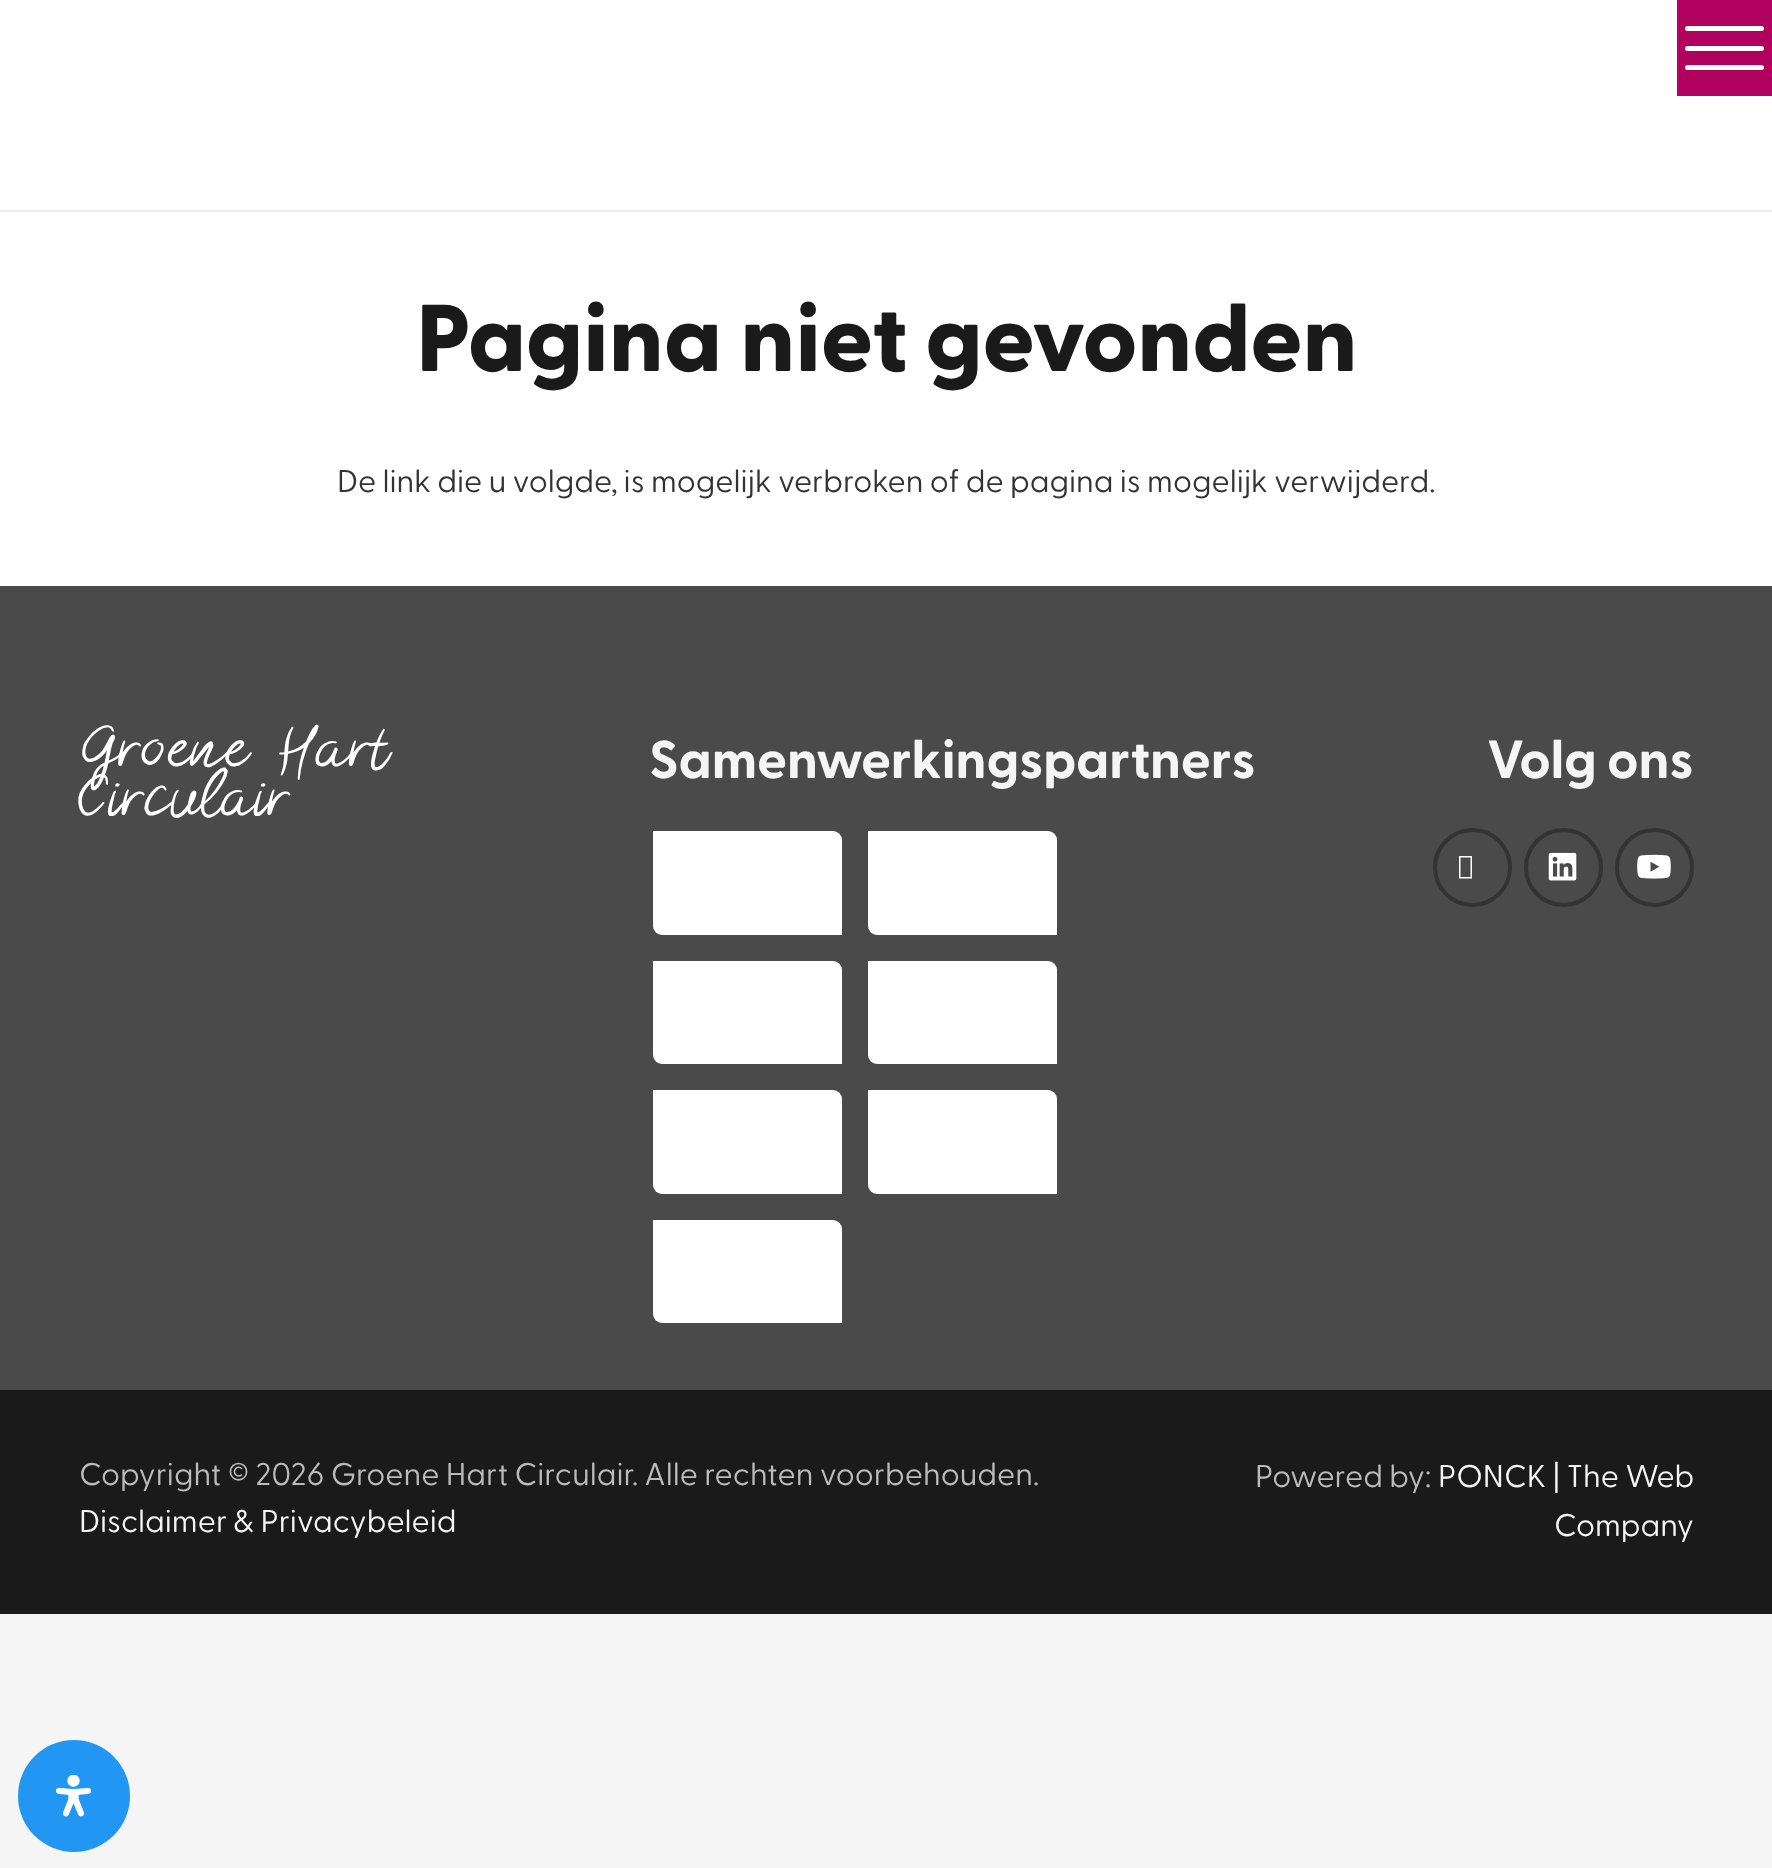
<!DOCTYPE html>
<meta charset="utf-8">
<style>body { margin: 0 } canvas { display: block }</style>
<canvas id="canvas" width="1772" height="1868"></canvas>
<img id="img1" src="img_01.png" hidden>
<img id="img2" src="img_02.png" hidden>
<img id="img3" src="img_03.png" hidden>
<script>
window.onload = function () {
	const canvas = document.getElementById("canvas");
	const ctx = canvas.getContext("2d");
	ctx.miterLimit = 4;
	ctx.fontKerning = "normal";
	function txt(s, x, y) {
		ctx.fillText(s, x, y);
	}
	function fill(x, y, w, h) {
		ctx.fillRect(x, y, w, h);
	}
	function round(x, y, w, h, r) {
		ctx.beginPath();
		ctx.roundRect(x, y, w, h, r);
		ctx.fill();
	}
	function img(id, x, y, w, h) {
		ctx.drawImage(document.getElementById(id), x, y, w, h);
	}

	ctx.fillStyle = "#F5F5F5";
	fill(0, 0, 1772, 1868);
	ctx.fillStyle = "#FFFFFF";
	fill(0, 0, 1772, 586);
	ctx.fillStyle = "#B0015E";
	fill(1677, 0, 95, 96);
	ctx.fillStyle = "#FFFFFF";
	round(1685, 26, 79, 5, 2.5);
	round(1685, 46, 79, 5, 2.5);
	round(1685, 65, 79, 5, 2.5);
	ctx.fillStyle = "#EBEBEB";
	ctx.beginPath();
	ctx.moveTo(0, 210);
	ctx.lineTo(0, 212);
	ctx.lineTo(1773, 212);
	ctx.lineTo(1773, 2);
	ctx.lineTo(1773, 210);
	ctx.closePath();
	ctx.fill();
	ctx.fillStyle = "#4A4A4A";
	fill(0, 586, 1772, 804);
	ctx.fillStyle = "#FFFFFF";
	ctx.beginPath();
	ctx.roundRect(653, 831, 189, 104, [0, 9, 0, 9]);
	ctx.fill();
	ctx.beginPath();
	ctx.roundRect(868, 831, 189, 104, [0, 9, 0, 9]);
	ctx.fill();
	ctx.beginPath();
	ctx.roundRect(653, 961, 189, 103, [0, 9, 0, 9]);
	ctx.fill();
	ctx.beginPath();
	ctx.roundRect(868, 961, 189, 103, [0, 9, 0, 9]);
	ctx.fill();
	ctx.beginPath();
	ctx.roundRect(653, 1090, 189, 104, [0, 9, 0, 9]);
	ctx.fill();
	ctx.beginPath();
	ctx.roundRect(868, 1090, 189, 104, [0, 9, 0, 9]);
	ctx.fill();
	ctx.beginPath();
	ctx.roundRect(653, 1220, 189, 103, [0, 9, 0, 9]);
	ctx.fill();
	ctx.beginPath();
	ctx.arc(1472.5, 867.5, 37.5, 0, Math.PI * 2);
	ctx.strokeStyle = "#333333";
	ctx.lineWidth = 4;
	ctx.stroke();
	ctx.beginPath();
	ctx.moveTo(1459, 878.5);
	ctx.lineTo(1459, 856);
	ctx.lineTo(1472, 856);
	ctx.lineTo(1472, 878.5);
	ctx.closePath();
	ctx.moveTo(1460.5, 877);
	ctx.lineTo(1470.5, 877);
	ctx.lineTo(1470.5, 857.5);
	ctx.lineTo(1460.5, 857.5);
	ctx.closePath();
	ctx.fill();
	ctx.beginPath();
	ctx.arc(1563.5, 867.5, 37.5, 0, Math.PI * 2);
	ctx.stroke();
	img("img1", 1548, 852, 29, 29);
	ctx.beginPath();
	ctx.arc(1654.5, 867.5, 37.5, 0, Math.PI * 2);
	ctx.stroke();
	img("img2", 1637, 854, 34, 25);
	ctx.fillStyle = "#1A1A1A";
	fill(0, 1390, 1772, 224);
	ctx.fillStyle = "#2196F3";
	ctx.beginPath();
	ctx.arc(74, 1796, 56, 0, Math.PI * 2);
	ctx.fill();
	img("img3", 55, 1775, 37, 42);
	ctx.font = "800 94.5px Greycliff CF";
	ctx.fillStyle = "#1A1A1A";
	txt("Pagina niet gevonden", 416, 371);
	ctx.font = "31.5px Greycliff CF";
	ctx.fillStyle = "#333333";
	txt("De link die u volgde, is mogelijk verbroken of de pagina is mogelijk verwijderd.", 337, 492);
	ctx.font = "47.25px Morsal";
	ctx.fillStyle = "#FFFFFF";
	txt("Groene Hart", 79, 766);
	txt("Circulair", 79, 815);
	ctx.font = "bold 53.5px Greycliff CF";
	ctx.fillStyle = "#F5F5F5";
	txt("Samenwerkingspartners", 649, 778);
	txt("Volg ons", 1487, 778);
	ctx.font = "31.5px Greycliff CF";
	ctx.fillStyle = "#BBBBBB";
	txt("Copyright © 2026 Groene Hart Circulair. Alle rechten voorbehouden.", 79, 1485);
	ctx.fillStyle = "#F5F5F5";
	txt("Disclaimer & Privacybeleid", 79, 1532);
	ctx.fillStyle = "#BBBBBB";
	txt("Powered by:", 1255, 1487);
	ctx.fillStyle = "#F5F5F5";
	txt("PONCK | The Web", 1438, 1487);
	txt("Company", 1554, 1536);
};
</script>
